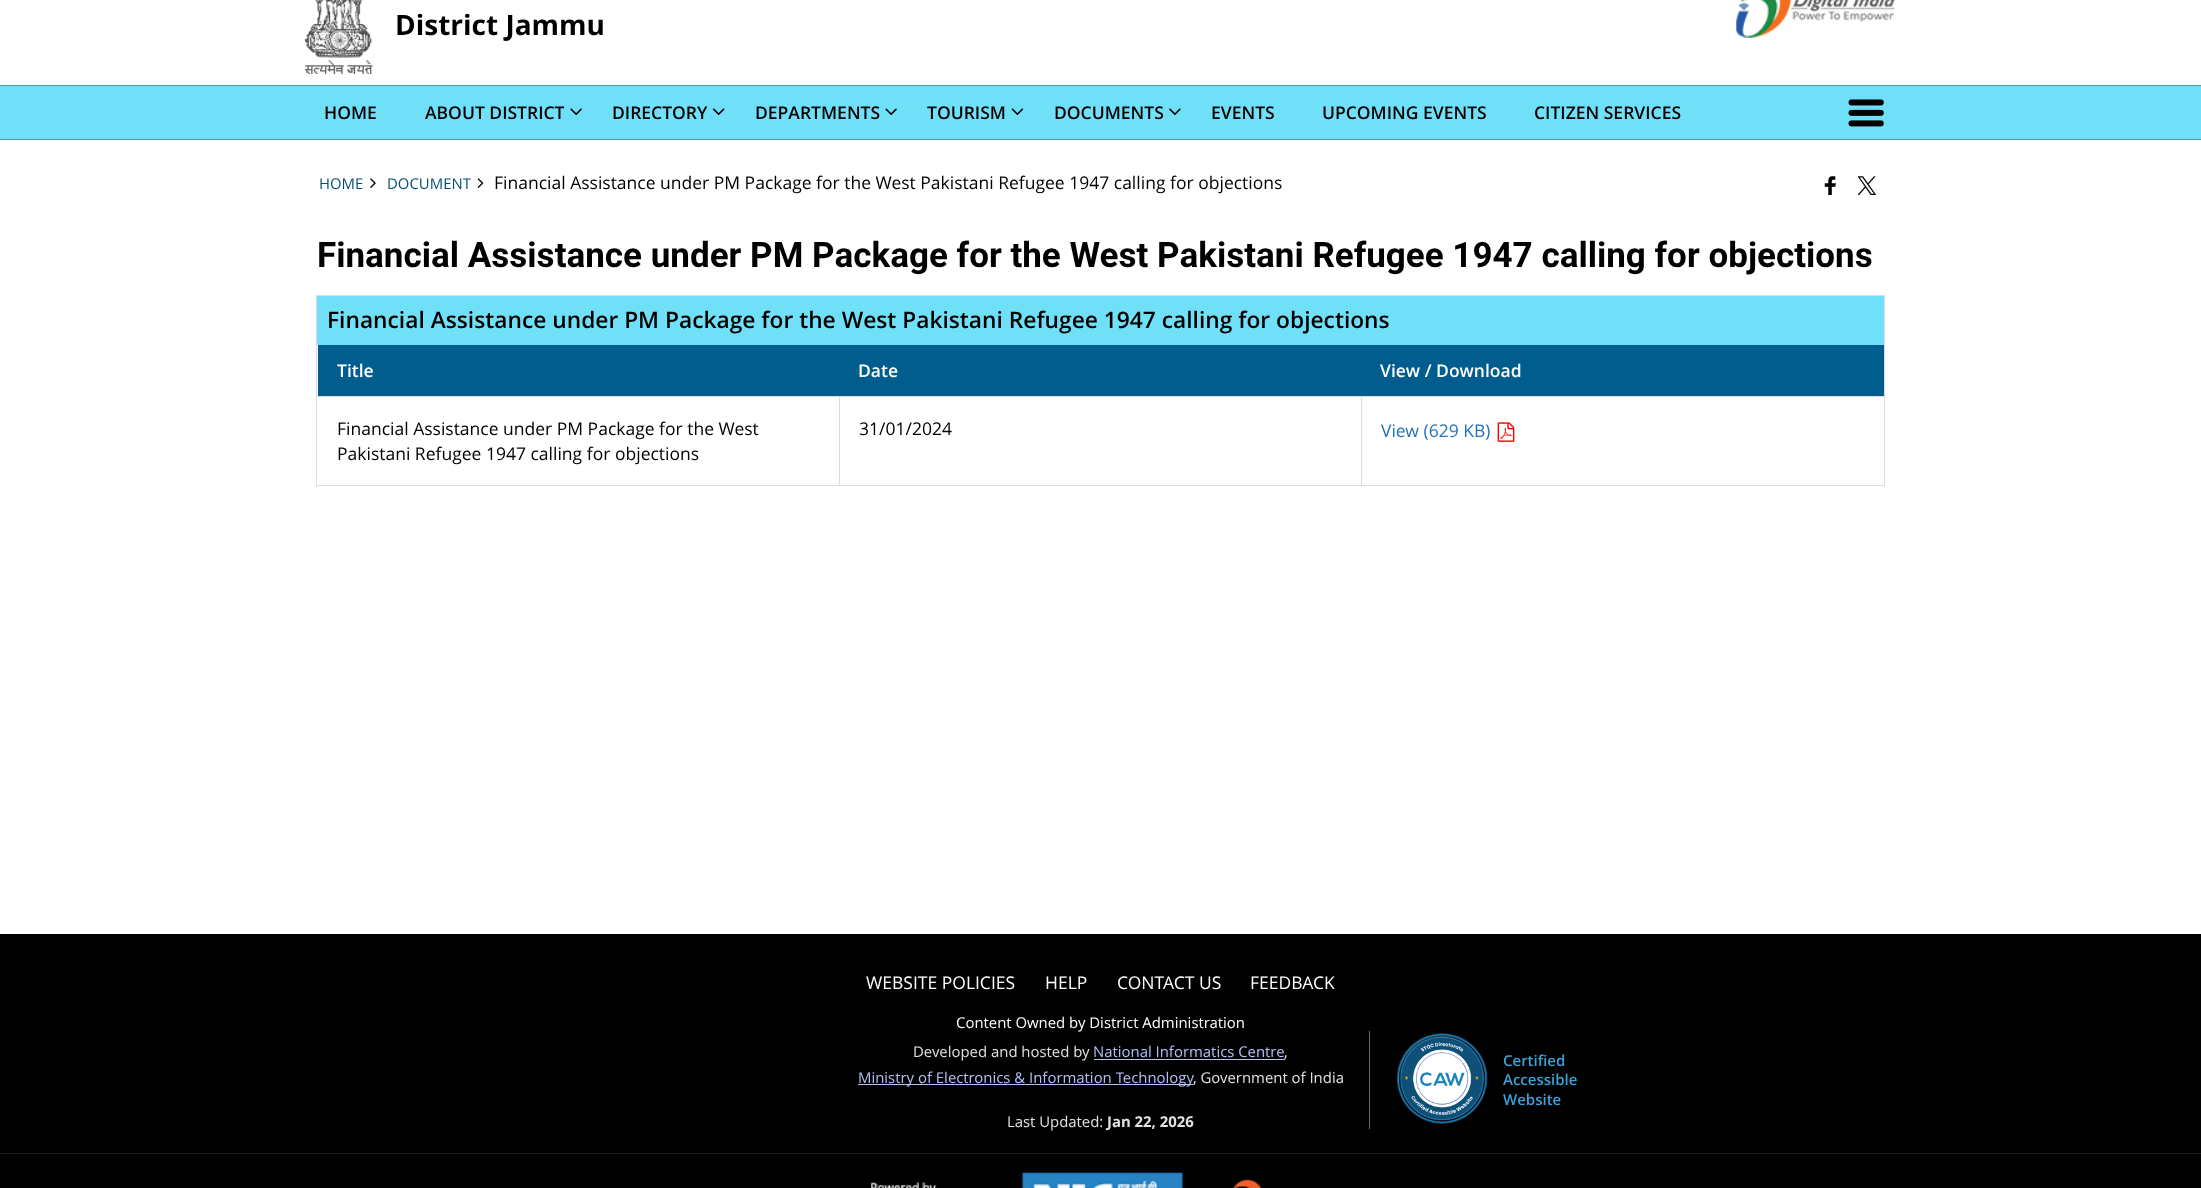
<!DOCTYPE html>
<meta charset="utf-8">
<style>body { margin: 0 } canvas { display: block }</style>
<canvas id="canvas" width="2201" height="1188"></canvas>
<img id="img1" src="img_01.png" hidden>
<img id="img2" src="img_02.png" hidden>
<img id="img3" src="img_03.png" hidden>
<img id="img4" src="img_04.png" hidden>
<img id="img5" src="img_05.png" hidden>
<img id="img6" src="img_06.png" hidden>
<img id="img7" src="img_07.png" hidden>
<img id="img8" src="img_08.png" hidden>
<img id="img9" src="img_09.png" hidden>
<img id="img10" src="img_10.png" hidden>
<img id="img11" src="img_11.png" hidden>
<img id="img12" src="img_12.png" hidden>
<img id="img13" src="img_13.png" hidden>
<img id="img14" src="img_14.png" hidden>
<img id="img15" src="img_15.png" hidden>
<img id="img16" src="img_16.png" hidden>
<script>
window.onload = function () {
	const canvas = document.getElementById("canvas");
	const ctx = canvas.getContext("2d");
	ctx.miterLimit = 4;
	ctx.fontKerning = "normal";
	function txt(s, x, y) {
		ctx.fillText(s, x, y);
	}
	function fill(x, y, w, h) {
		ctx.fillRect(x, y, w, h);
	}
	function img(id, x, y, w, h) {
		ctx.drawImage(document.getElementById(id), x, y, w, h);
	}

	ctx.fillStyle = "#FFFFFF";
	fill(0, 0, 2201, 1188);
	img("img1", 304, 0, 69, 74);
	img("img2", 1736, 0, 160, 38);
	ctx.fillStyle = "#70E0F8";
	fill(0, 86, 2201, 53);
	ctx.fillStyle = "#4E9DAE";
	fill(0, 85, 2201, 1);
	fill(0, 139, 2201, 1);
	img("img3", 570, 108, 12, 8);
	img("img4", 712, 108, 13, 8);
	img("img3", 885, 108, 12, 8);
	img("img5", 1011, 108, 13, 8);
	img("img6", 1169, 108, 12, 8);
	img("img7", 1848, 99, 36, 28);
	img("img8", 370, 178, 6, 10);
	img("img9", 477, 178, 7, 10);
	img("img10", 1824, 176, 12, 19);
	img("img11", 1858, 176, 18, 19);
	ctx.fillStyle = "#DDDDDD";
	fill(316, 295, 1569, 1);
	fill(1884, 295, 1, 191);
	fill(316, 485, 1569, 1);
	fill(316, 295, 1, 191);
	ctx.fillStyle = "#70E0F8";
	fill(317, 296, 1567, 49);
	ctx.fillStyle = "#015D8E";
	fill(318, 345, 1566, 51);
	ctx.fillStyle = "#DDDDDD";
	fill(316, 396, 1569, 1);
	fill(839, 396, 1, 90);
	fill(1361, 396, 1, 90);
	img("img12", 1497, 422, 18, 20);
	ctx.fillStyle = "#000000";
	fill(0, 934, 2201, 254);
	ctx.fillStyle = "#B4C1F5";
	fill(1094, 1059, 191, 1);
	fill(858, 1084, 335, 1);
	ctx.fillStyle = "#666666";
	fill(1369, 1031, 1, 98);
	img("img13", 1396, 1033, 92, 91);
	ctx.fillStyle = "#1A1A1A";
	fill(0, 1153, 2201, 1);
	img("img14", 871, 1181, 66, 7);
	img("img15", 1022, 1172, 161, 16);
	img("img16", 1232, 1179, 30, 9);
	ctx.font = "bold 28px Open Sans";
	ctx.fillStyle = "#000000";
	txt("District Jammu", 395, 35);
	ctx.font = "600 17.5px Open Sans";
	txt("HOME", 324, 119);
	txt("ABOUT DISTRICT", 425, 119);
	txt("DIRECTORY", 612, 119);
	txt("DEPARTMENTS", 755, 119);
	txt("TOURISM", 927, 119);
	txt("DOCUMENTS", 1054, 119);
	txt("EVENTS", 1211, 119);
	txt("UPCOMING EVENTS", 1322, 119);
	txt("CITIZEN SERVICES", 1534, 119);
	ctx.font = "14.9px Open Sans";
	ctx.fillStyle = "#004F73";
	txt("HOME", 319, 189);
	txt("DOCUMENT", 387, 189);
	ctx.font = "17.5px Open Sans";
	ctx.fillStyle = "#000000";
	txt("Financial Assistance under PM Package for the West Pakistani Refugee 1947 calling for objections", 494, 189);
	ctx.font = "bold 35px Roboto";
	txt("Financial Assistance under PM Package for the West Pakistani Refugee 1947 calling for objections", 317, 267);
	ctx.font = "600 22.75px Open Sans";
	txt("Financial Assistance under PM Package for the West Pakistani Refugee 1947 calling for objections", 327, 328);
	ctx.font = "600 17.5px Open Sans";
	ctx.fillStyle = "#FFFFFF";
	txt("Title", 337, 377);
	txt("Date", 858, 377);
	txt("View / Download", 1380, 377);
	ctx.font = "17.5px Open Sans";
	ctx.fillStyle = "#000000";
	txt("Financial Assistance under PM Package for the West", 337, 435);
	txt("Pakistani Refugee 1947 calling for objections", 337, 460);
	txt("31/01/2024", 859, 435);
	ctx.fillStyle = "#2273B9";
	txt("View (629 KB)", 1381, 437);
	ctx.fillStyle = "#FFFFFF";
	txt("WEBSITE POLICIES", 866, 989);
	txt("HELP", 1045, 989);
	txt("CONTACT US", 1117, 989);
	txt("FEEDBACK", 1250, 989);
	ctx.font = "14.9px Open Sans";
	txt("Content Owned by District Administration", 956, 1028);
	ctx.fillStyle = "#E3E2E2";
	txt("Developed and hosted by", 913, 1057);
	ctx.fillStyle = "#B4C1F5";
	txt("National Informatics Centre", 1093, 1057);
	ctx.fillStyle = "#E3E2E2";
	txt(",", 1284, 1057);
	ctx.fillStyle = "#B4C1F5";
	txt("Ministry of Electronics & Information Technology", 858, 1083);
	ctx.fillStyle = "#E3E2E2";
	txt(", Government of India", 1193, 1083);
	ctx.font = "600 15px Open Sans";
	ctx.fillStyle = "#38A3D7";
	txt("Certified", 1503, 1066);
	txt("Accessible", 1503, 1085);
	txt("Website", 1503, 1105);
	ctx.font = "14.9px Open Sans";
	ctx.fillStyle = "#E3E2E2";
	txt("Last Updated:", 1007, 1127);
	ctx.font = "bold 14.9px Open Sans";
	txt("Jan 22, 2026", 1107, 1127);
};
</script>
